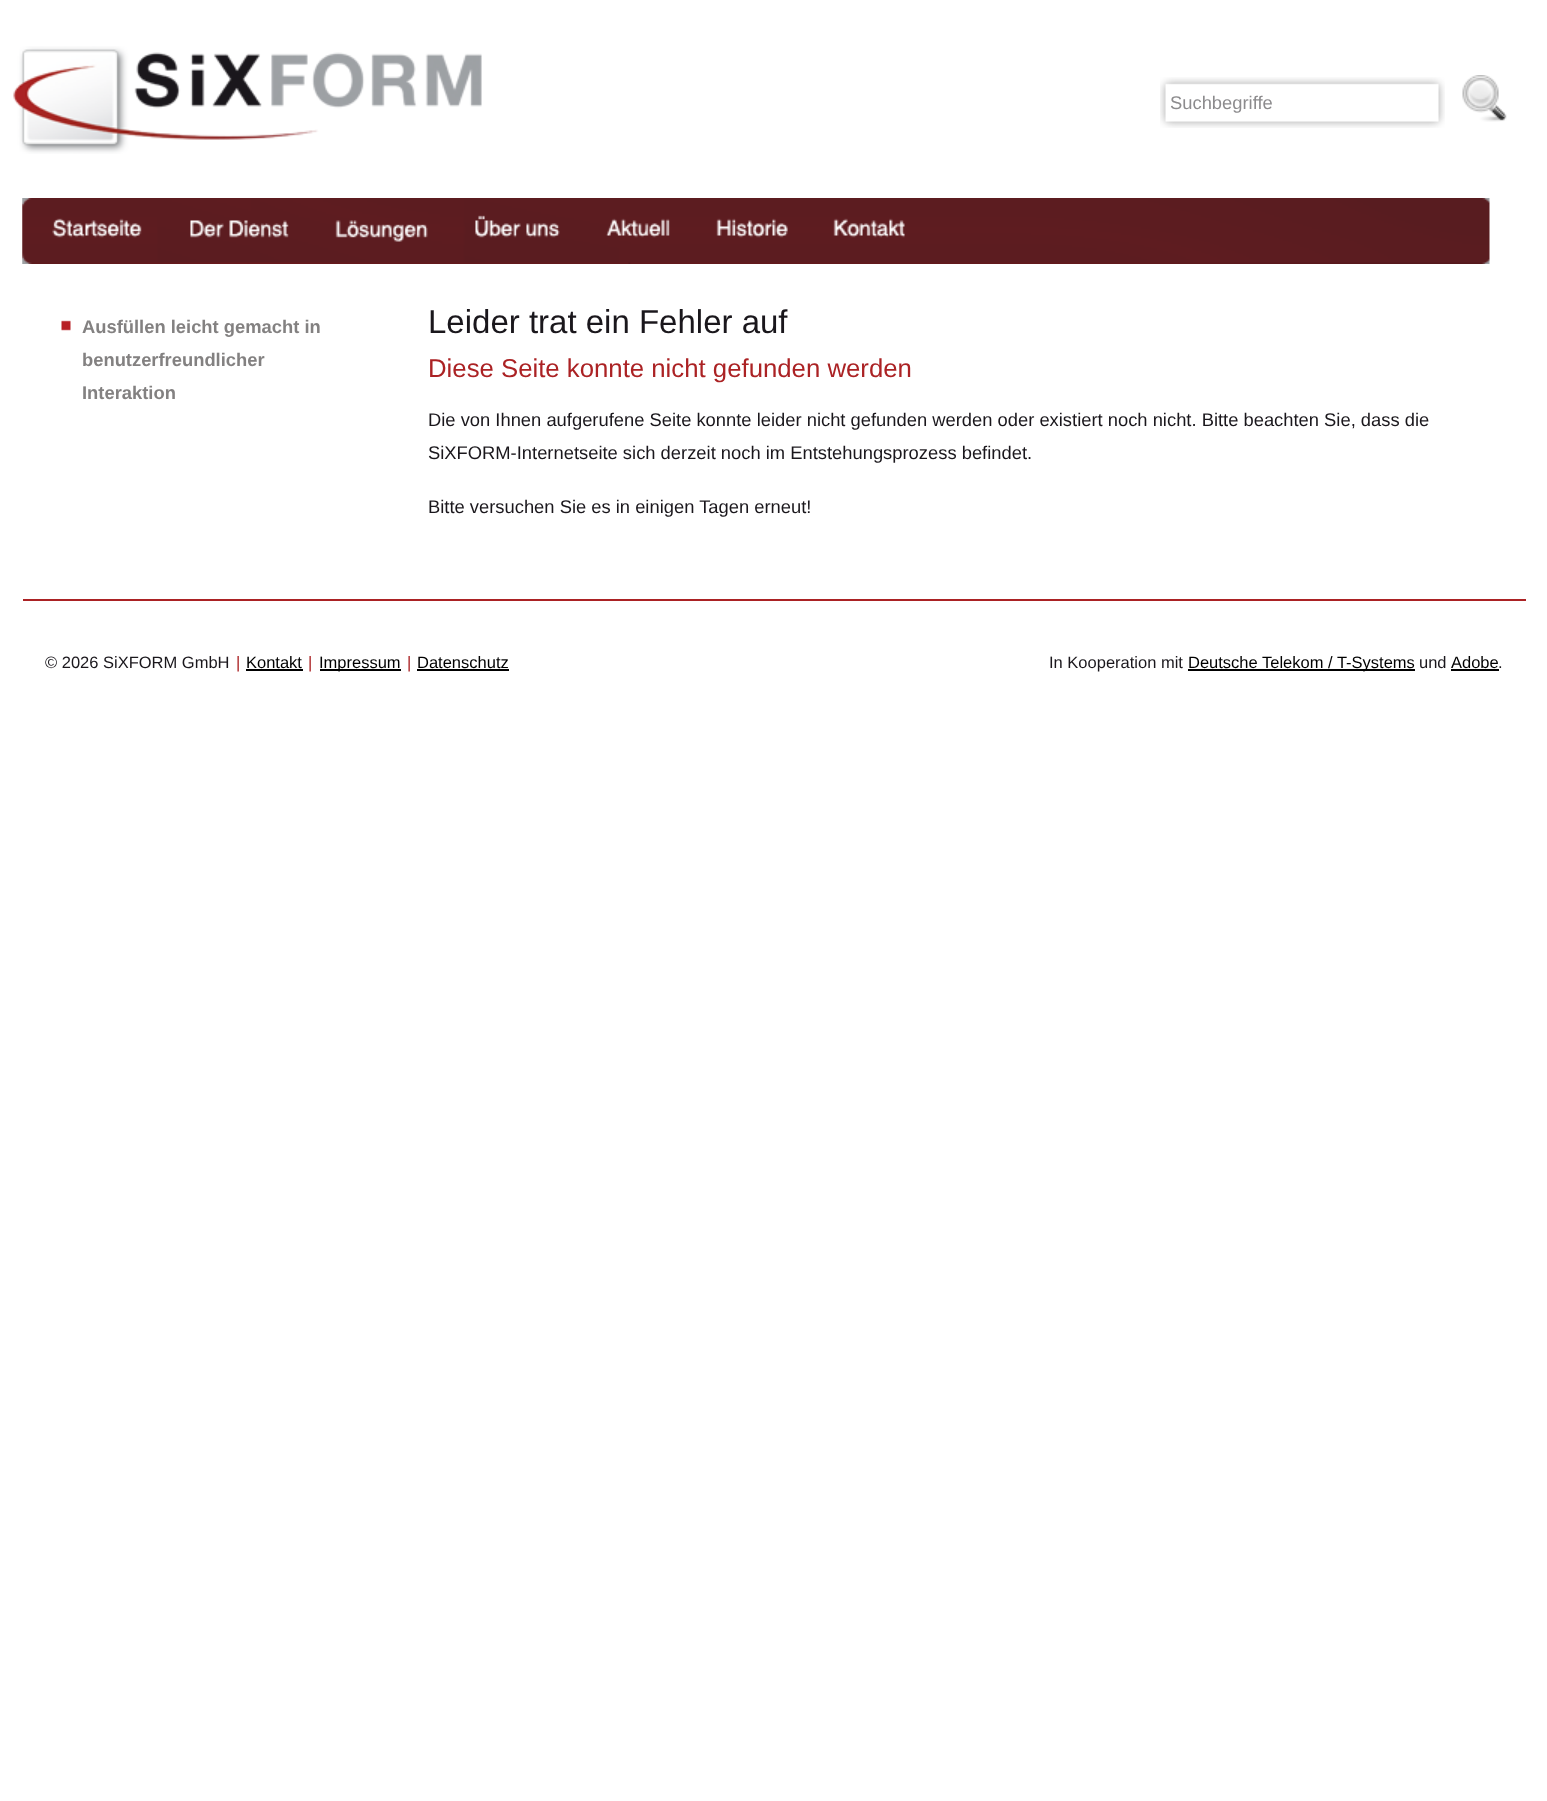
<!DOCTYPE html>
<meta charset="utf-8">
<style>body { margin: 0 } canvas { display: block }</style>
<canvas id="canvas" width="1547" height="1801"></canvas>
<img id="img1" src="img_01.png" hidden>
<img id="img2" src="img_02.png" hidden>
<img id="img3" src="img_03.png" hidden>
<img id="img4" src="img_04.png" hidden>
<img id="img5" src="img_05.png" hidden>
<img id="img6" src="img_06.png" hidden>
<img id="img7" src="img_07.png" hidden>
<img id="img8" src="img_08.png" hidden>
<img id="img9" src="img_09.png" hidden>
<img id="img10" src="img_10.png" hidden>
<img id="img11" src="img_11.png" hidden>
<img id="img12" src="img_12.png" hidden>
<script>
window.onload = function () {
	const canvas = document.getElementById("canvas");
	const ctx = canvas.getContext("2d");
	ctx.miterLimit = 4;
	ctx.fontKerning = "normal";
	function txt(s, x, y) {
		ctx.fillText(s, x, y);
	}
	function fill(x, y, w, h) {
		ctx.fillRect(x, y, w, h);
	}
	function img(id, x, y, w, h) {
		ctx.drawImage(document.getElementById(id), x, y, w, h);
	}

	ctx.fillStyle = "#FFFFFF";
	fill(0, 0, 1547, 1801);
	img("img1", 13, 46, 469, 108);
	img("img2", 1160, 77, 285, 51);
	img("img3", 1462, 75, 45, 47);
	ctx.fillStyle = "#AB2224";
	fill(23, 599, 1503, 2);
	img("img4", 22, 198, 1468, 66);
	img("img5", 22, 198, 120, 66);
	img("img6", 190, 220, 99, 18);
	img("img7", 335, 220, 93, 22);
	img("img8", 475, 215, 85, 23);
	img("img9", 606, 218, 64, 20);
	img("img10", 716, 218, 72, 20);
	img("img11", 833, 218, 72, 20);
	img("img12", 61, 320, 10, 11);
	ctx.fillStyle = "#000000";
	fill(246, 669, 57, 2);
	fill(320, 669, 81, 2);
	fill(417, 669, 92, 2);
	fill(1188, 669, 227, 2);
	fill(1451, 669, 48, 2);
	ctx.font = "18.38px Liberation Sans";
	ctx.fillStyle = "#8C8B8D";
	txt("Suchbegriffe", 1170, 109);
	ctx.font = "bold 18.38px Liberation Sans";
	ctx.fillStyle = "#838181";
	txt("Ausfüllen leicht gemacht in", 82, 333);
	txt("benutzerfreundlicher", 82, 366);
	txt("Interaktion", 82, 399);
	ctx.font = "33px Liberation Sans";
	ctx.fillStyle = "#1A171C";
	txt("Leider trat ein Fehler auf", 428, 333);
	ctx.font = "25.75px Liberation Sans";
	ctx.fillStyle = "#AB2224";
	txt("Diese Seite konnte nicht gefunden werden", 428, 377);
	ctx.font = "18.38px Liberation Sans";
	ctx.fillStyle = "#1A171C";
	txt("Die von Ihnen aufgerufene Seite konnte leider nicht gefunden werden oder existiert noch nicht. Bitte beachten Sie, dass die", 428, 426);
	txt("SiXFORM-Internetseite sich derzeit noch im Entstehungsprozess befindet.", 428, 459);
	txt("Bitte versuchen Sie es in einigen Tagen erneut!", 428, 513);
	ctx.font = "16.5px Liberation Sans";
	txt("© 2026 SiXFORM GmbH", 45, 668);
	ctx.fillStyle = "#AB2224";
	txt("|", 236, 668);
	ctx.fillStyle = "#000000";
	txt("Kontakt", 246, 668);
	ctx.fillStyle = "#AB2224";
	txt("|", 308, 668);
	ctx.fillStyle = "#000000";
	txt("Impressum", 319, 668);
	ctx.fillStyle = "#AB2224";
	txt("|", 407, 668);
	ctx.fillStyle = "#000000";
	txt("Datenschutz", 417, 668);
	ctx.fillStyle = "#1A171C";
	txt("In Kooperation mit", 1049, 668);
	ctx.fillStyle = "#000000";
	txt("Deutsche Telekom / T-Systems", 1188, 668);
	ctx.fillStyle = "#1A171C";
	txt("und", 1419, 668);
	ctx.fillStyle = "#000000";
	txt("Adobe", 1451, 668);
	ctx.fillStyle = "#1A171C";
	txt(".", 1498, 668);
};
</script>
